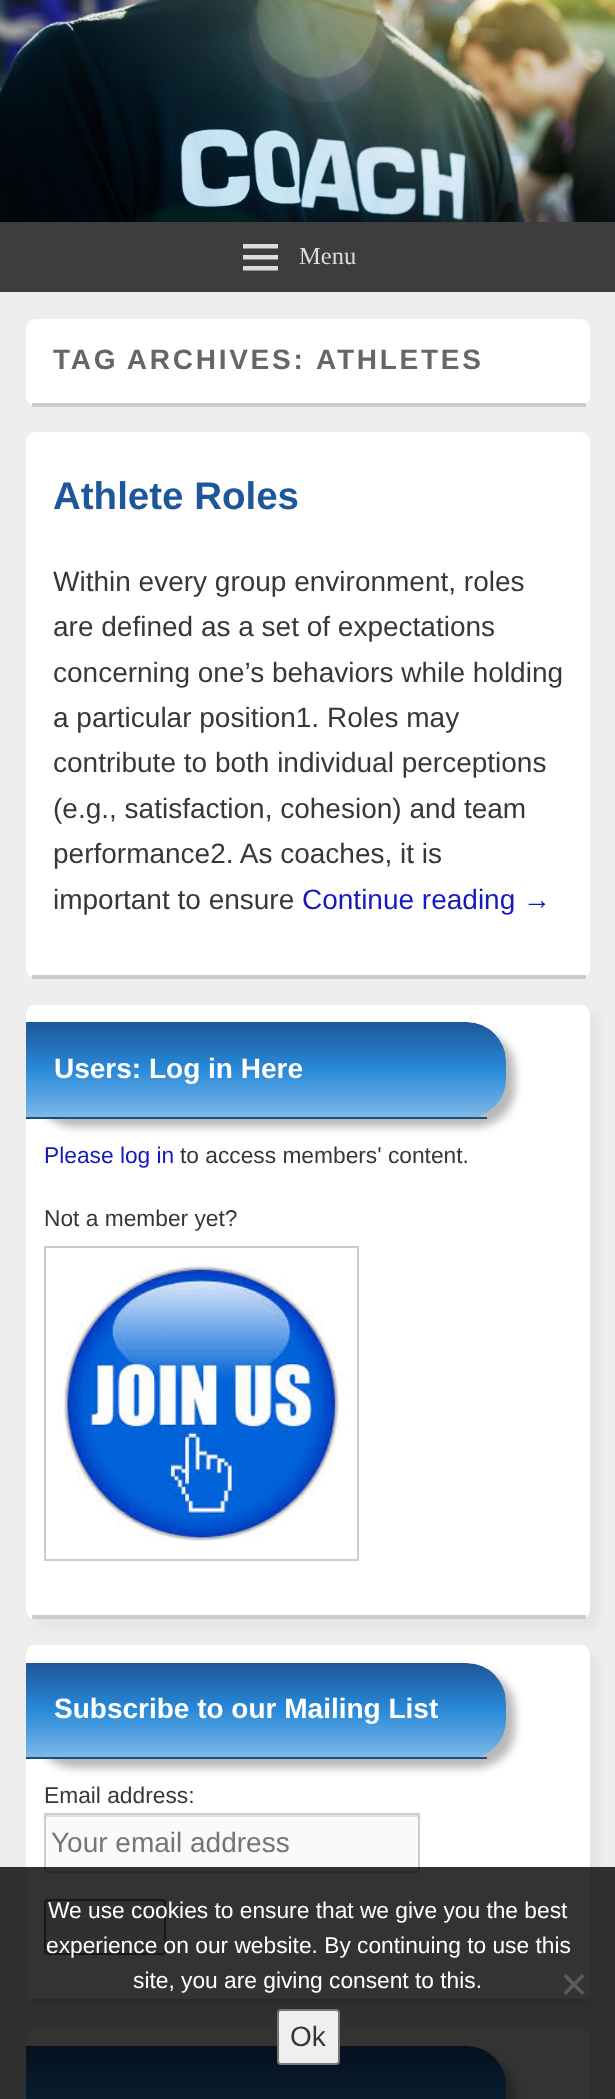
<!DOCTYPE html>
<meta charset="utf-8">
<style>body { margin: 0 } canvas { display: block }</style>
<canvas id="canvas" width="615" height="2099"></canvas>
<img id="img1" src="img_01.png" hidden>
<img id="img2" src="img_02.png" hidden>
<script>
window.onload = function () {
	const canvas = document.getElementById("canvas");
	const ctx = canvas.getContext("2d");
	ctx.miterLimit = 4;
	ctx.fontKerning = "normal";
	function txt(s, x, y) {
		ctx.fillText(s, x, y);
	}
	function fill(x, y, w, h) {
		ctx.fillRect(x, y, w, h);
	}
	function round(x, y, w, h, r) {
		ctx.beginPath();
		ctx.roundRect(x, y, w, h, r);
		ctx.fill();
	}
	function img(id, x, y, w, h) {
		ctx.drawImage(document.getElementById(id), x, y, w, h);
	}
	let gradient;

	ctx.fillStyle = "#EEEEEE";
	fill(0, 0, 615, 2099);
	img("img1", 0, 0, 615, 222);
	ctx.fillStyle = "#3D3D3D";
	fill(0, 222, 615, 70);
	ctx.fillStyle = "#DDDDDD";
	ctx.beginPath();
	ctx.moveTo(243, 270.5);
	ctx.lineTo(243, 266);
	ctx.lineTo(278, 266);
	ctx.lineTo(278, 270.5);
	ctx.closePath();
	ctx.moveTo(243, 244);
	ctx.lineTo(278, 244);
	ctx.lineTo(278, 248.5);
	ctx.lineTo(243, 248.5);
	ctx.closePath();
	ctx.moveTo(243, 259.5);
	ctx.lineTo(243, 255);
	ctx.lineTo(278, 255);
	ctx.lineTo(278, 259.5);
	ctx.closePath();
	ctx.fill();
	ctx.fillStyle = "#FFFFFF";
	round(26, 319, 564, 87, 9);
	ctx.fillStyle = "#CCCCCC";
	fill(32, 403, 554, 4);
	ctx.fillStyle = "#FFFFFF";
	round(26, 432, 564, 546, 9);
	ctx.fillStyle = "#CCCCCC";
	fill(32, 975, 554, 4);
	ctx.fillStyle = "#E4E4E4";
	ctx.filter = "blur(4.5px)";
	ctx.beginPath();
	ctx.roundRect(35, 1013, 564, 615, 9);
	ctx.fill();
	ctx.filter = "none";
	ctx.fillStyle = "#FFFFFF";
	round(26, 1005, 564, 614, 9);
	ctx.fillStyle = "#CCCCCC";
	fill(32, 1615, 554, 4);
	ctx.fillStyle = "rgba(0, 0, 0, 0.28)";
	ctx.filter = "blur(4.5px)";
	ctx.beginPath();
	ctx.roundRect(35, 1031, 480, 96, 39);
	ctx.fill();
	ctx.filter = "none";
	ctx.save();
	ctx.beginPath();
	ctx.roundRect(26, 1022, 480, 96, [0, 39, 39, 0]);
	ctx.clip();
	gradient = ctx.createLinearGradient(266, 1022, 266, 1117);
	gradient.addColorStop(0, "#1E5799");
	gradient.addColorStop(0.5, "#2989D8");
	gradient.addColorStop(1, "#7DB9E8");
	ctx.fillStyle = gradient;
	ctx.beginPath();
	ctx.roundRect(26, 1022, 480, 95, [0, 39, 0, 0]);
	ctx.fill();
	ctx.restore();
	ctx.fillStyle = "#1F4B74";
	fill(26, 1117, 461, 2);
	ctx.strokeStyle = "#CCCCCC";
	ctx.lineWidth = 2;
	ctx.strokeRect(45, 1247, 313, 313);
	img("img2", 58, 1261, 287, 280);
	ctx.fillStyle = "#E4E4E4";
	ctx.filter = "blur(4.5px)";
	ctx.beginPath();
	ctx.roundRect(35, 1654, 564, 357, 9);
	ctx.fill();
	ctx.filter = "none";
	ctx.fillStyle = "#FFFFFF";
	round(26, 1645, 564, 357, 9);
	ctx.fillStyle = "#CCCCCC";
	fill(32, 1999, 554, 4);
	ctx.fillStyle = "rgba(0, 0, 0, 0.28)";
	ctx.filter = "blur(4.5px)";
	ctx.beginPath();
	ctx.roundRect(35, 1671, 480, 97, 39);
	ctx.fill();
	ctx.filter = "none";
	ctx.save();
	ctx.beginPath();
	ctx.roundRect(26, 1663, 480, 96, [0, 39, 39, 0]);
	ctx.clip();
	gradient = ctx.createLinearGradient(266, 1663, 266, 1757);
	gradient.addColorStop(0, "#1E5799");
	gradient.addColorStop(0.5, "#2989D8");
	gradient.addColorStop(1, "#7DB9E8");
	ctx.fillStyle = gradient;
	ctx.beginPath();
	ctx.roundRect(26, 1663, 480, 94, [0, 39, 0, 0]);
	ctx.fill();
	ctx.restore();
	ctx.fillStyle = "#1F4B74";
	fill(26, 1757, 461, 2);
	ctx.fillStyle = "#FAFAFA";
	fill(46, 1817, 372, 54);
	ctx.fillStyle = "#E1E1E1";
	fill(46, 1815, 372, 2);
	ctx.strokeRect(45, 1814, 374, 58);
	ctx.fillStyle = "#EFEFEF";
	ctx.beginPath();
	ctx.roundRect(45, 1900, 120, 54, 3);
	ctx.fill();
	ctx.strokeStyle = "#767676";
	ctx.stroke();
	ctx.fillStyle = "#E4E4E4";
	ctx.filter = "blur(4.5px)";
	ctx.beginPath();
	ctx.roundRect(35, 2037, 564, 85, 9);
	ctx.fill();
	ctx.filter = "none";
	ctx.fillStyle = "#FFFFFF";
	round(26, 2028, 564, 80, 9);
	ctx.fillStyle = "rgba(0, 0, 0, 0.28)";
	ctx.filter = "blur(4.5px)";
	ctx.beginPath();
	ctx.roundRect(35, 2055, 480, 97, 39);
	ctx.fill();
	ctx.filter = "none";
	ctx.save();
	ctx.beginPath();
	ctx.moveTo(26, 2046);
	ctx.lineTo(467, 2046);
	ctx.bezierCurveTo(488.5, 2046, 506, 2063.5, 506, 2085);
	ctx.lineTo(506, 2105);
	ctx.bezierCurveTo(506, 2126.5, 488.5, 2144, 467, 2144);
	ctx.lineTo(26, 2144);
	ctx.closePath();
	ctx.clip();
	gradient = ctx.createLinearGradient(266, 2046, 266, 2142);
	gradient.addColorStop(0, "#1E5799");
	gradient.addColorStop(0.5, "#2989D8");
	gradient.addColorStop(1, "#7DB9E8");
	ctx.fillStyle = gradient;
	ctx.beginPath();
	ctx.moveTo(26, 2046);
	ctx.lineTo(467, 2046);
	ctx.bezierCurveTo(488.5, 2046, 506, 2063.5, 506, 2085);
	ctx.lineTo(506, 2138);
	ctx.lineTo(26, 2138);
	ctx.closePath();
	ctx.fill();
	ctx.restore();
	ctx.fillStyle = "rgba(0, 0, 0, 0.8)";
	fill(0, 1867, 615, 232);
	ctx.fillStyle = "#5A5A5A";
	ctx.beginPath();
	ctx.moveTo(582, 1974);
	ctx.lineTo(584.5, 1976.5);
	ctx.lineTo(566, 1995);
	ctx.lineTo(563.5, 1992.5);
	ctx.closePath();
	ctx.fill();
	ctx.beginPath();
	ctx.moveTo(563.5, 1976.5);
	ctx.lineTo(566, 1974);
	ctx.lineTo(584.5, 1992.5);
	ctx.lineTo(582, 1995);
	ctx.closePath();
	ctx.fill();
	ctx.fillStyle = "#EFEFEF";
	ctx.beginPath();
	ctx.roundRect(278, 2010, 61, 54, 3);
	ctx.fill();
	ctx.stroke();
	ctx.font = "24.5px Liberation Serif";
	ctx.fillStyle = "#DDDDDD";
	txt("Menu", 299, 264);
	ctx.letterSpacing = "2.75px";
	ctx.wordSpacing = "-1px";
	ctx.font = "bold 28px Liberation Sans";
	ctx.fillStyle = "#666666";
	txt("TAG ARCHIVES:", 53, 369);
	ctx.wordSpacing = "0px";
	txt("ATHLETES", 316, 369);
	ctx.letterSpacing = "0px";
	ctx.font = "bold 38.5px Liberation Sans";
	ctx.fillStyle = "#1E5799";
	txt("Athlete Roles", 53, 509);
	ctx.font = "28px Liberation Sans";
	ctx.fillStyle = "#373737";
	txt("Within every group environment, roles", 53, 591);
	txt("are defined as a set of expectations", 53, 636);
	txt("concerning one’s behaviors while holding", 53, 682);
	txt("a particular position1. Roles may", 53, 727);
	txt("contribute to both individual perceptions", 53, 772);
	txt("(e.g., satisfaction, cohesion) and team", 53, 818);
	txt("performance2. As coaches, it is", 53, 863);
	txt("important to ensure", 53, 909);
	ctx.fillStyle = "#1619BC";
	txt("Continue reading →", 302, 909);
	ctx.font = "bold 28px Liberation Sans";
	ctx.fillStyle = "#FFFFFF";
	txt("Users: Log in Here", 54, 1078);
	ctx.font = "22.75px Liberation Sans";
	ctx.fillStyle = "#1619BC";
	txt("Please log in", 44, 1163);
	ctx.fillStyle = "#373737";
	txt("to access members' content.", 180, 1163);
	txt("Not a member yet?", 44, 1226);
	ctx.font = "bold 28px Liberation Sans";
	ctx.fillStyle = "#FFFFFF";
	txt("Subscribe to our Mailing List", 54, 1718);
	ctx.font = "22.75px Liberation Sans";
	ctx.fillStyle = "#373737";
	txt("Email address:", 44, 1803);
	ctx.font = "28px Liberation Sans";
	ctx.fillStyle = "#757575";
	txt("Your email address", 51, 1852);
	ctx.font = "22.75px Liberation Sans";
	ctx.fillStyle = "#FFFFFF";
	txt("We use cookies to ensure that we give you the best", 48, 1918);
	txt("experience on our website. By continuing to use this", 46, 1953);
	txt("site, you are giving consent to this.", 133, 1988);
	ctx.font = "28px Liberation Sans";
	ctx.fillStyle = "#373737";
	txt("Ok", 290, 2046);
};
</script>
